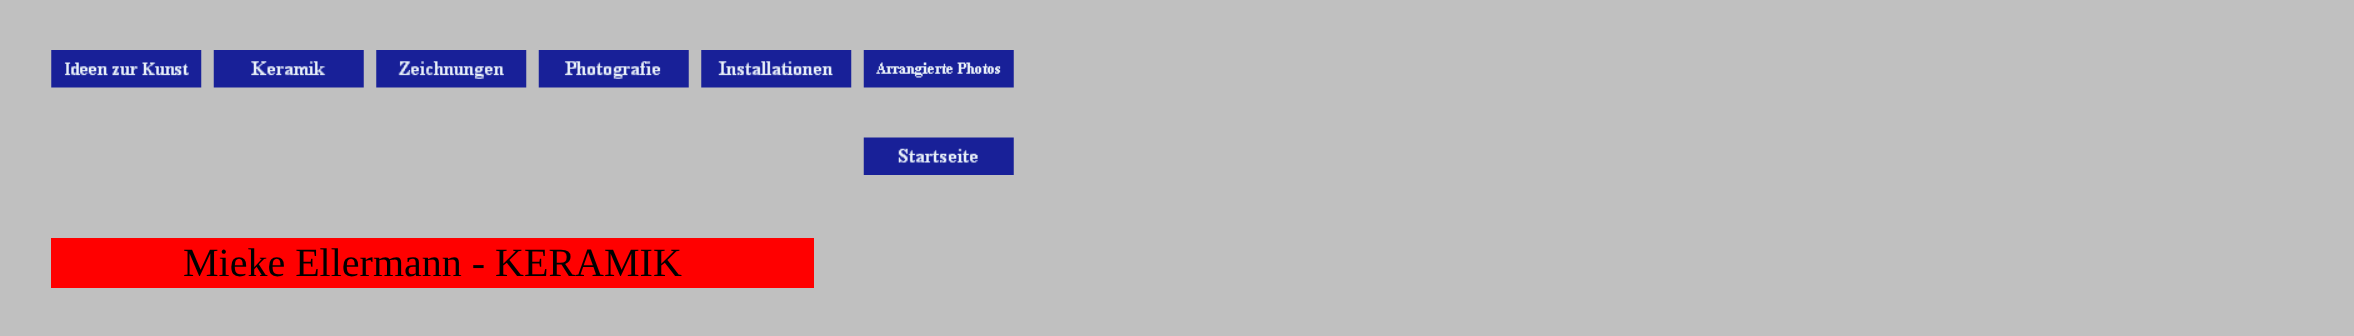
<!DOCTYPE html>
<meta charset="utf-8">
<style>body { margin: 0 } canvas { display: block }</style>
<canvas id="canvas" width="2354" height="336"></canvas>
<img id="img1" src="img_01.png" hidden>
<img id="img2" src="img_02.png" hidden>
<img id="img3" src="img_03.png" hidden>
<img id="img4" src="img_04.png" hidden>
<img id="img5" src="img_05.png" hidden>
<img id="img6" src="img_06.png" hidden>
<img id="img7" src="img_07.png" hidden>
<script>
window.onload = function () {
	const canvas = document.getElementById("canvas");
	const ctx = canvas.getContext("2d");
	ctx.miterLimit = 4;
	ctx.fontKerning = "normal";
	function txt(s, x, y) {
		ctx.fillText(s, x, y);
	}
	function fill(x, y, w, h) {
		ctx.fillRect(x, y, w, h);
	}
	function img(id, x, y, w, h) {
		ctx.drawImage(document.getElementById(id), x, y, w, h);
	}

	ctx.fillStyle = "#C0C0C0";
	fill(0, 0, 2354, 336);
	img("img1", 51, 50, 151, 38);
	img("img2", 213, 50, 151, 38);
	img("img3", 376, 50, 151, 38);
	img("img4", 538, 50, 151, 38);
	img("img5", 701, 50, 151, 38);
	img("img6", 863, 50, 151, 38);
	img("img7", 863, 137, 151, 38);
	ctx.fillStyle = "#FF0000";
	fill(51, 238, 763, 50);
	ctx.font = "40px Liberation Serif";
	ctx.fillStyle = "#000000";
	txt("Mieke Ellermann - KERAMIK", 183, 276);
};
</script>
